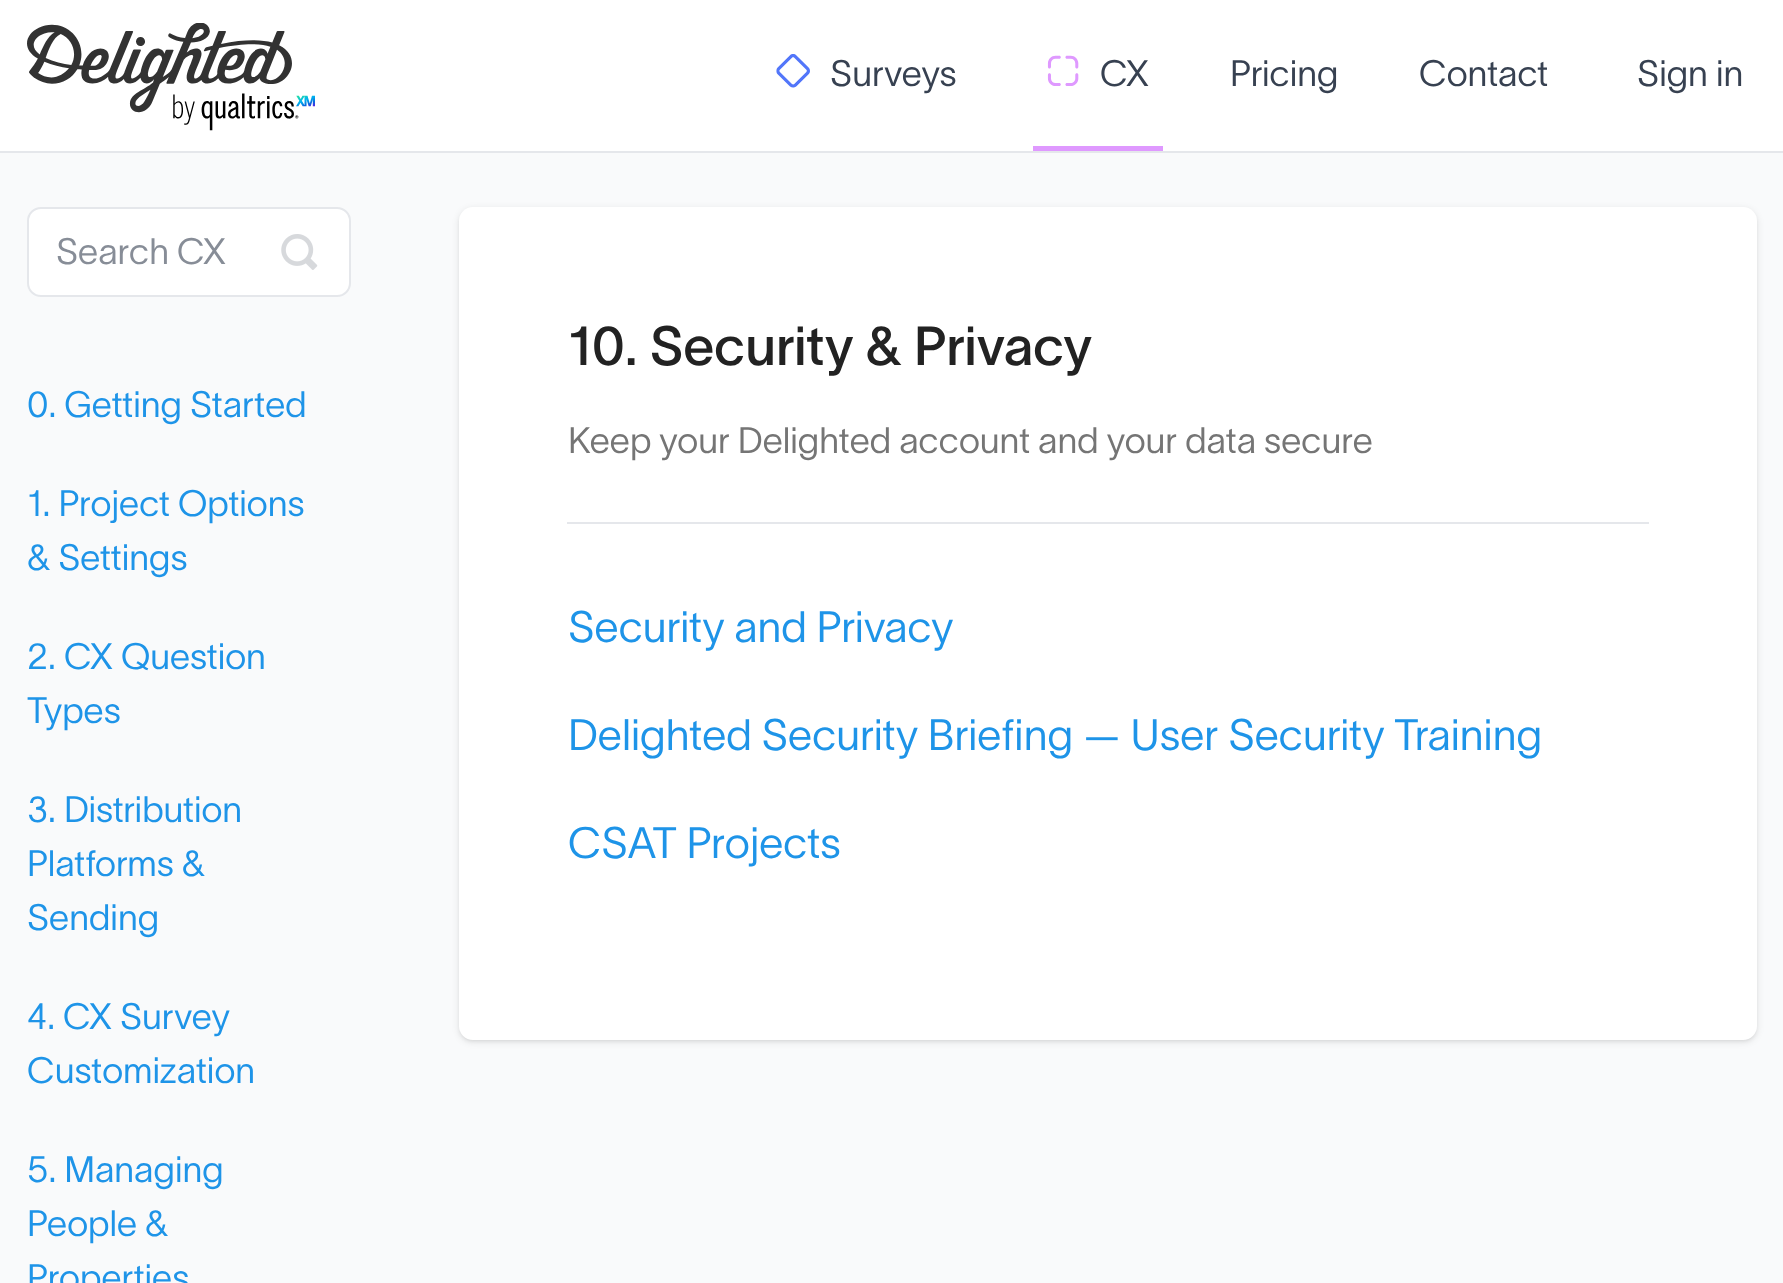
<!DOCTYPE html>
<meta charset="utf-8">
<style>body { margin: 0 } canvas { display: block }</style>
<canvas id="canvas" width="1783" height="1283"></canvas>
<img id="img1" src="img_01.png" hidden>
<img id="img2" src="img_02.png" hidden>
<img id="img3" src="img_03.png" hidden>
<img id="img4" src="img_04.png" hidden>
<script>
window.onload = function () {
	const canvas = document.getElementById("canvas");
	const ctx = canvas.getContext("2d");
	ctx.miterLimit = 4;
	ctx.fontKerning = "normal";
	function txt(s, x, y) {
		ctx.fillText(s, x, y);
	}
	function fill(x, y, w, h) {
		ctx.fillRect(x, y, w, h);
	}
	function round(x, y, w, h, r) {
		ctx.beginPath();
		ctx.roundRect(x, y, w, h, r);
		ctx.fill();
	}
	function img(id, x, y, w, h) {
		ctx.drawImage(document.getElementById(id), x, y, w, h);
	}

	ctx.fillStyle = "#F9FAFB";
	fill(0, 0, 1783, 1283);
	ctx.fillStyle = "#FFFFFF";
	fill(0, 0, 1783, 151);
	ctx.fillStyle = "#E5E7EB";
	fill(0, 151, 1783, 2);
	img("img1", 27, 23, 288, 108);
	img("img2", 776, 54, 34, 34);
	ctx.fillStyle = "#DF99FF";
	fill(1033, 146, 130, 5);
	img("img3", 1047, 55, 32, 31);
	ctx.fillStyle = "#FFFFFF";
	ctx.beginPath();
	ctx.roundRect(28, 208, 322, 88, 13);
	ctx.fill();
	ctx.strokeStyle = "#E5E7EB";
	ctx.lineWidth = 2;
	ctx.stroke();
	img("img4", 281, 234, 37, 36);
	ctx.fillStyle = "rgba(0, 0, 0, 0.1)";
	ctx.filter = "blur(2px)";
	ctx.beginPath();
	ctx.roundRect(461, 212, 1294, 828, 11);
	ctx.fill();
	ctx.filter = "none";
	ctx.filter = "blur(3.5px)";
	ctx.beginPath();
	ctx.roundRect(459, 209, 1298, 833, 14);
	ctx.fill();
	ctx.filter = "none";
	ctx.fillStyle = "#FFFFFF";
	round(459, 207, 1298, 833, 14);
	ctx.fillStyle = "#E5E7EB";
	fill(567, 522, 1082, 2);
	ctx.font = "200 36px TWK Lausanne";
	ctx.fillStyle = "#374151";
	txt("Surveys", 830, 86);
	txt("CX", 1100, 86);
	txt("Pricing", 1230, 86);
	txt("Contact", 1419, 86);
	txt("Sign in", 1637, 86);
	ctx.fillStyle = "#878D97";
	txt("Search CX", 56, 264);
	ctx.fillStyle = "#1E94E8";
	txt("0. Getting Started", 27, 417);
	txt("1. Project Options", 27, 516);
	txt("& Settings", 27, 570);
	txt("2. CX Question", 27, 669);
	txt("Types", 27, 723);
	txt("3. Distribution", 27, 822);
	txt("Platforms &", 27, 876);
	txt("Sending", 27, 930);
	txt("4. CX Survey", 27, 1029);
	txt("Customization", 27, 1083);
	txt("5. Managing", 27, 1182);
	txt("People &", 27, 1236);
	txt("Properties", 27, 1290);
	ctx.font = "54px TWK Lausanne";
	ctx.fillStyle = "#222222";
	txt("10. Security & Privacy", 568, 365);
	ctx.font = "200 36px TWK Lausanne";
	ctx.fillStyle = "#757575";
	txt("Keep your Delighted account and your data secure", 568, 453);
	ctx.font = "200 43.2px TWK Lausanne";
	ctx.fillStyle = "#1E94E8";
	txt("Security and Privacy", 568, 642);
	txt("Delighted Security Briefing — User Security Training", 568, 750);
	txt("CSAT Projects", 568, 858);
};
</script>
